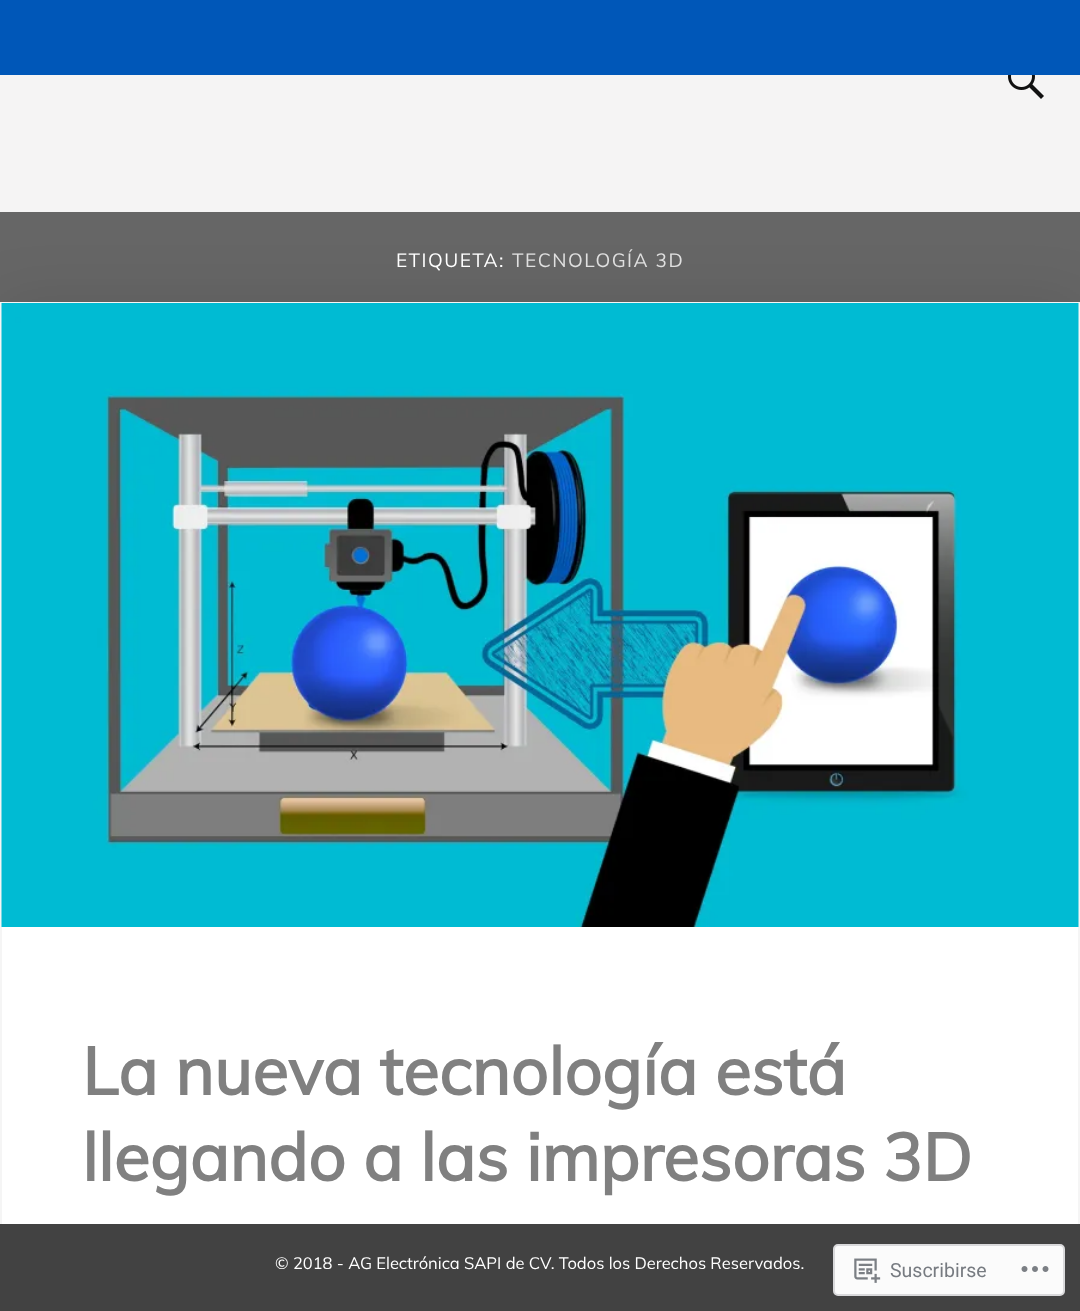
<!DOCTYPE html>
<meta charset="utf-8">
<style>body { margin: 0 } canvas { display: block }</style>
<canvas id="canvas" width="1080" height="1311"></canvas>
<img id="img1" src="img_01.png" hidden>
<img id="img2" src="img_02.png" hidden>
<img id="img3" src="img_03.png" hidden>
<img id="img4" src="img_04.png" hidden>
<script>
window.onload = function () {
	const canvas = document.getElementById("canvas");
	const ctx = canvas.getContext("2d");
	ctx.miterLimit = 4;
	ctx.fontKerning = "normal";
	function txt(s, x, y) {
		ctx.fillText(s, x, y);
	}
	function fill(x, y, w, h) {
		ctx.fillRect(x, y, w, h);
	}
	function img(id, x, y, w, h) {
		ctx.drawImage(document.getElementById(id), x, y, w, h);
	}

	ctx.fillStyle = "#F5F4F4";
	fill(0, 0, 1080, 1311);
	img("img1", 1008, 75, 36, 24);
	ctx.fillStyle = "#666666";
	fill(0, 212, 1080, 90);
	ctx.fillStyle = "rgba(0, 0, 0, 0.1)";
	ctx.filter = "blur(30px)";
	ctx.beginPath();
	ctx.rect(0, 302, 1080, 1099);
	ctx.fill();
	ctx.filter = "none";
	ctx.fillStyle = "#FFFFFF";
	fill(2, 927, 1076, 297);
	ctx.strokeStyle = "#F5F5F5";
	ctx.lineWidth = 2;
	ctx.strokeRect(1, 303, 1078, 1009);
	img("img2", 1, 303, 1078, 624);
	ctx.fillStyle = "#0057B8";
	fill(0, 0, 1080, 75);
	ctx.fillStyle = "#424242";
	fill(0, 1224, 1080, 87);
	ctx.fillStyle = "#FBFBFB";
	ctx.beginPath();
	ctx.roundRect(834, 1245, 230, 50, 4);
	ctx.fill();
	ctx.strokeStyle = "#D9D9DB";
	ctx.stroke();
	img("img3", 854, 1258, 27, 25);
	img("img4", 1021, 1266, 28, 6);
	ctx.letterSpacing = "1.5px";
	ctx.font = "19.1px Muli";
	ctx.fillStyle = "#FFFFFF";
	txt("ETIQUETA:", 396, 267);
	ctx.fillStyle = "#E0E0E0";
	txt("TECNOLOGÍA 3D", 512, 267);
	ctx.letterSpacing = "0px";
	ctx.font = "bold 66.25px Muli";
	ctx.fillStyle = "#808080";
	txt("La nueva tecnología está", 82, 1095);
	txt("llegando a las impresoras 3D", 82, 1181);
	ctx.font = "16.5px Muli";
	ctx.fillStyle = "#FFFFFF";
	txt("© 2018 - AG Electrónica SAPI de CV. Todos los Derechos Reservados.", 275, 1269);
	ctx.font = "19.5px Roboto";
	ctx.fillStyle = "#777B81";
	txt("Suscribirse", 890, 1277);
};
</script>
